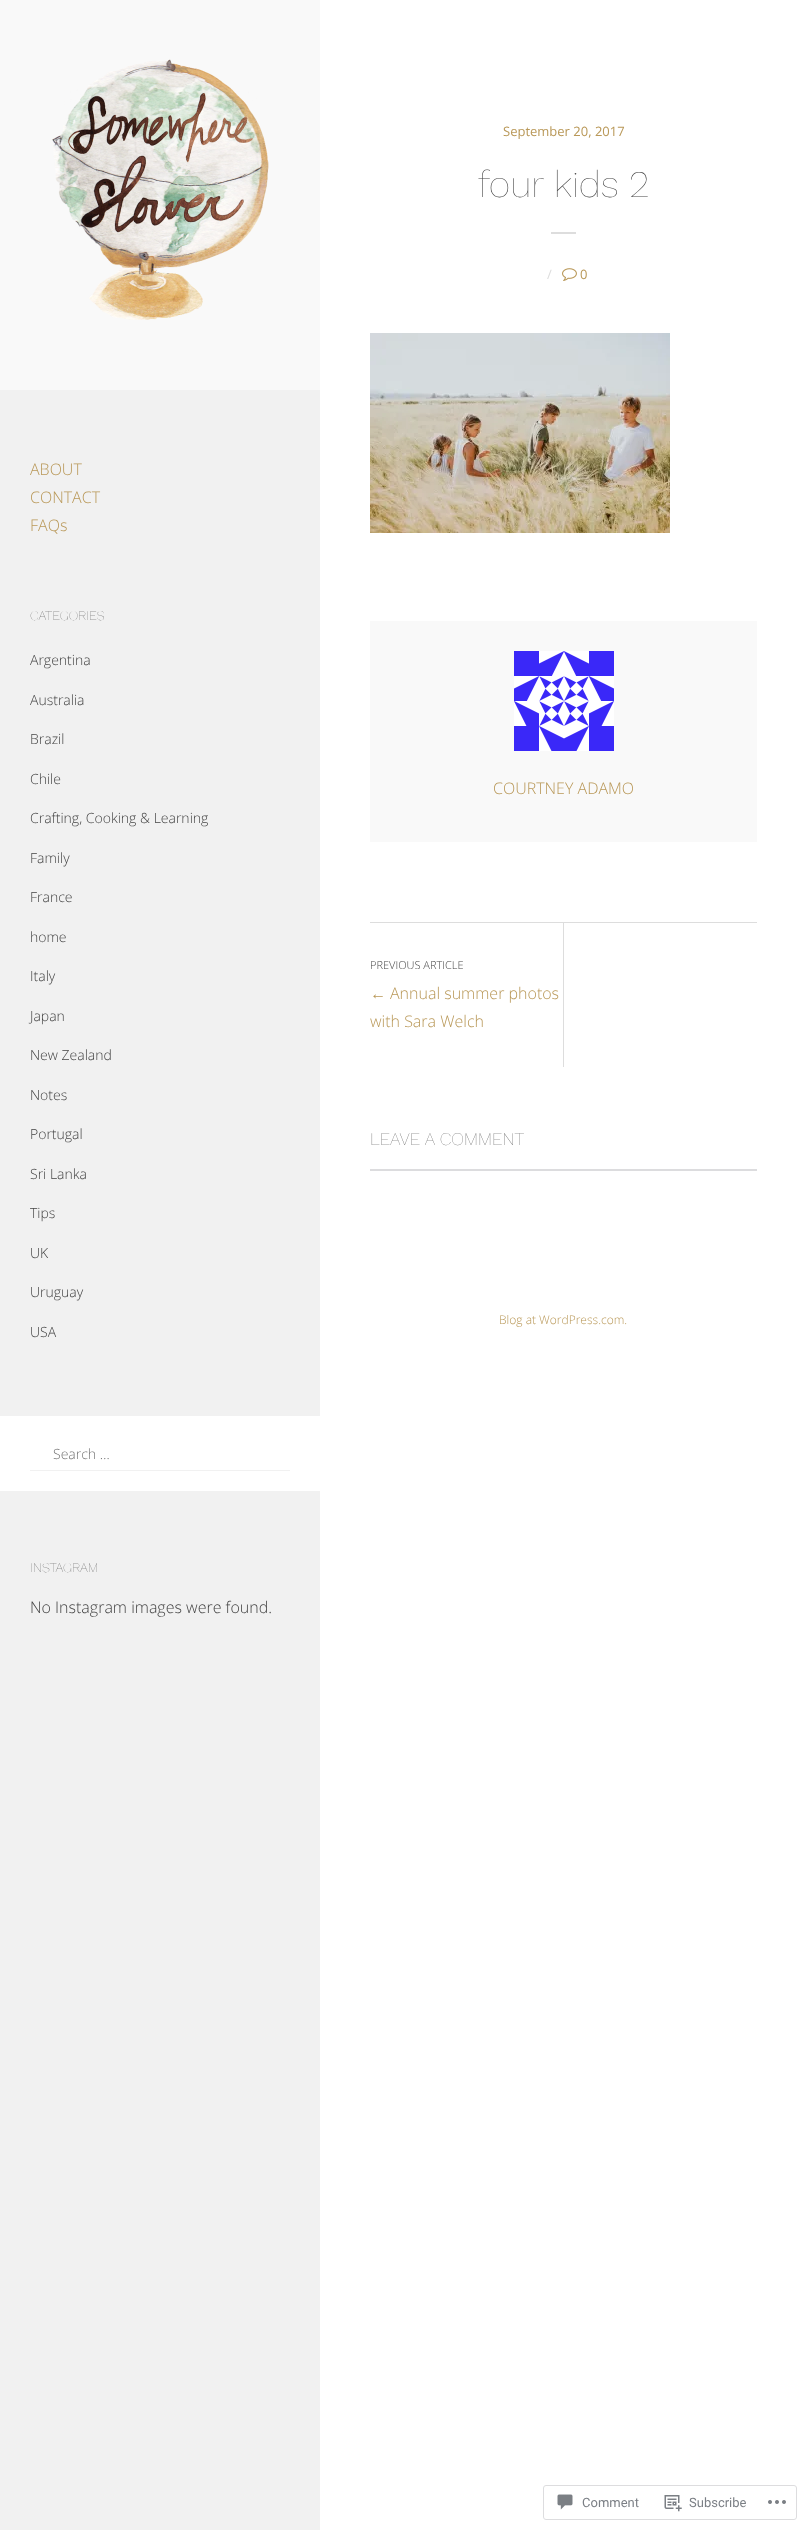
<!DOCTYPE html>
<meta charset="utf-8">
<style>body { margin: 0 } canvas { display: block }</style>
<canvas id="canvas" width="807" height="2530"></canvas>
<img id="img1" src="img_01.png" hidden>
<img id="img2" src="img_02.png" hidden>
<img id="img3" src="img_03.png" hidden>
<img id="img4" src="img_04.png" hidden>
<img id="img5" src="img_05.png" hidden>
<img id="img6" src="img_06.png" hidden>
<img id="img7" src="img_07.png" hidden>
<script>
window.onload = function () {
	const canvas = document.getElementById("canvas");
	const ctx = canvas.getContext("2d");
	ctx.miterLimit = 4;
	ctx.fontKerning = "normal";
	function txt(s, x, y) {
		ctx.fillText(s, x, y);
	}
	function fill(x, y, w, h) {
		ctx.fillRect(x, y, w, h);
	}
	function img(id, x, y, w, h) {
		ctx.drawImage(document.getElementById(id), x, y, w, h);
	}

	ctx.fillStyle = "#FFFFFF";
	fill(0, 0, 807, 2530);
	ctx.fillStyle = "#F1F1F1";
	fill(0, 390, 320, 2140);
	ctx.fillStyle = "#F9F9F9";
	fill(0, 0, 320, 390);
	img("img1", 52, 59, 217, 261);
	ctx.fillStyle = "#FFFFFF";
	fill(0, 1416, 320, 75);
	ctx.fillStyle = "#F1F1F1";
	fill(30, 1470, 260, 1);
	ctx.fillStyle = "#DDDDDD";
	fill(551, 232, 25, 2);
	img("img2", 562, 268, 15, 13);
	img("img3", 370, 333, 300, 200);
	ctx.fillStyle = "#F9F9F9";
	fill(370, 621, 387, 221);
	img("img4", 514, 651, 100, 100);
	ctx.fillStyle = "#DDDDDD";
	fill(370, 922, 387, 1);
	fill(563, 923, 1, 144);
	ctx.fillStyle = "#DCDCDE";
	fill(370, 1169, 387, 2);
	ctx.beginPath();
	ctx.roundRect(543.5, 2485.5, 253, 34, 2.5);
	ctx.strokeStyle = "#DDDDDF";
	ctx.stroke();
	img("img5", 557, 2494, 16, 16);
	img("img6", 664, 2495, 18, 17);
	img("img7", 768, 2500, 18, 4);
	ctx.font = "300 16px Open Sans";
	ctx.fillStyle = "#B99858";
	txt("ABOUT", 30, 475);
	txt("CONTACT", 30, 503);
	txt("FAQs", 30, 531);
	ctx.font = "100 13.25px Work Sans";
	ctx.fillStyle = "#444444";
	txt("CATEGORIES", 30, 620);
	ctx.font = "300 14px Open Sans";
	txt("Argentina", 30, 665);
	txt("Australia", 30, 705);
	txt("Brazil", 30, 744);
	txt("Chile", 30, 784);
	txt("Crafting, Cooking & Learning", 30, 823);
	txt("Family", 30, 863);
	txt("France", 30, 902);
	txt("home", 30, 942);
	txt("Italy", 30, 981);
	txt("Japan", 30, 1021);
	txt("New Zealand", 30, 1060);
	txt("Notes", 30, 1100);
	txt("Portugal", 30, 1139);
	txt("Sri Lanka", 30, 1179);
	txt("Tips", 30, 1218);
	txt("UK", 30, 1258);
	txt("Uruguay", 30, 1297);
	txt("USA", 30, 1337);
	ctx.fillStyle = "#757575";
	txt("Search …", 53, 1459);
	ctx.font = "100 13.25px Work Sans";
	ctx.fillStyle = "#444444";
	txt("INSTAGRAM", 30, 1572);
	ctx.font = "300 16px Open Sans";
	txt("No Instagram images were found.", 30, 1613);
	ctx.font = "13px Open Sans";
	ctx.fillStyle = "#B99858";
	txt("September 20, 2017", 503, 136);
	ctx.font = "100 37.5px Work Sans";
	ctx.fillStyle = "#444444";
	txt("four kids 2", 478, 197);
	ctx.font = "13px Open Sans";
	ctx.fillStyle = "#DDDDDD";
	txt("/", 547, 279);
	ctx.fillStyle = "#B99858";
	txt("0", 580, 279);
	ctx.font = "300 16px Open Sans";
	txt("COURTNEY ADAMO", 493, 794);
	ctx.font = "300 11px Open Sans";
	ctx.fillStyle = "#444444";
	txt("PREVIOUS ARTICLE", 370, 969);
	ctx.font = "16px Liberation Sans";
	ctx.fillStyle = "#B99858";
	txt("←", 370, 999);
	ctx.font = "300 16px Open Sans";
	txt("Annual summer photos", 390, 999);
	txt("with Sara Welch", 370, 1027);
	ctx.font = "100 17.75px Work Sans";
	ctx.fillStyle = "#444444";
	txt("LEAVE A COMMENT", 370, 1145);
	ctx.font = "300 12px Open Sans";
	ctx.fillStyle = "#B99858";
	txt("Blog at WordPress.com.", 499, 1324);
	ctx.font = "13px Roboto";
	ctx.fillStyle = "#7B7F85";
	txt("Comment", 582, 2507);
	txt("Subscribe", 689, 2507);
};
</script>
